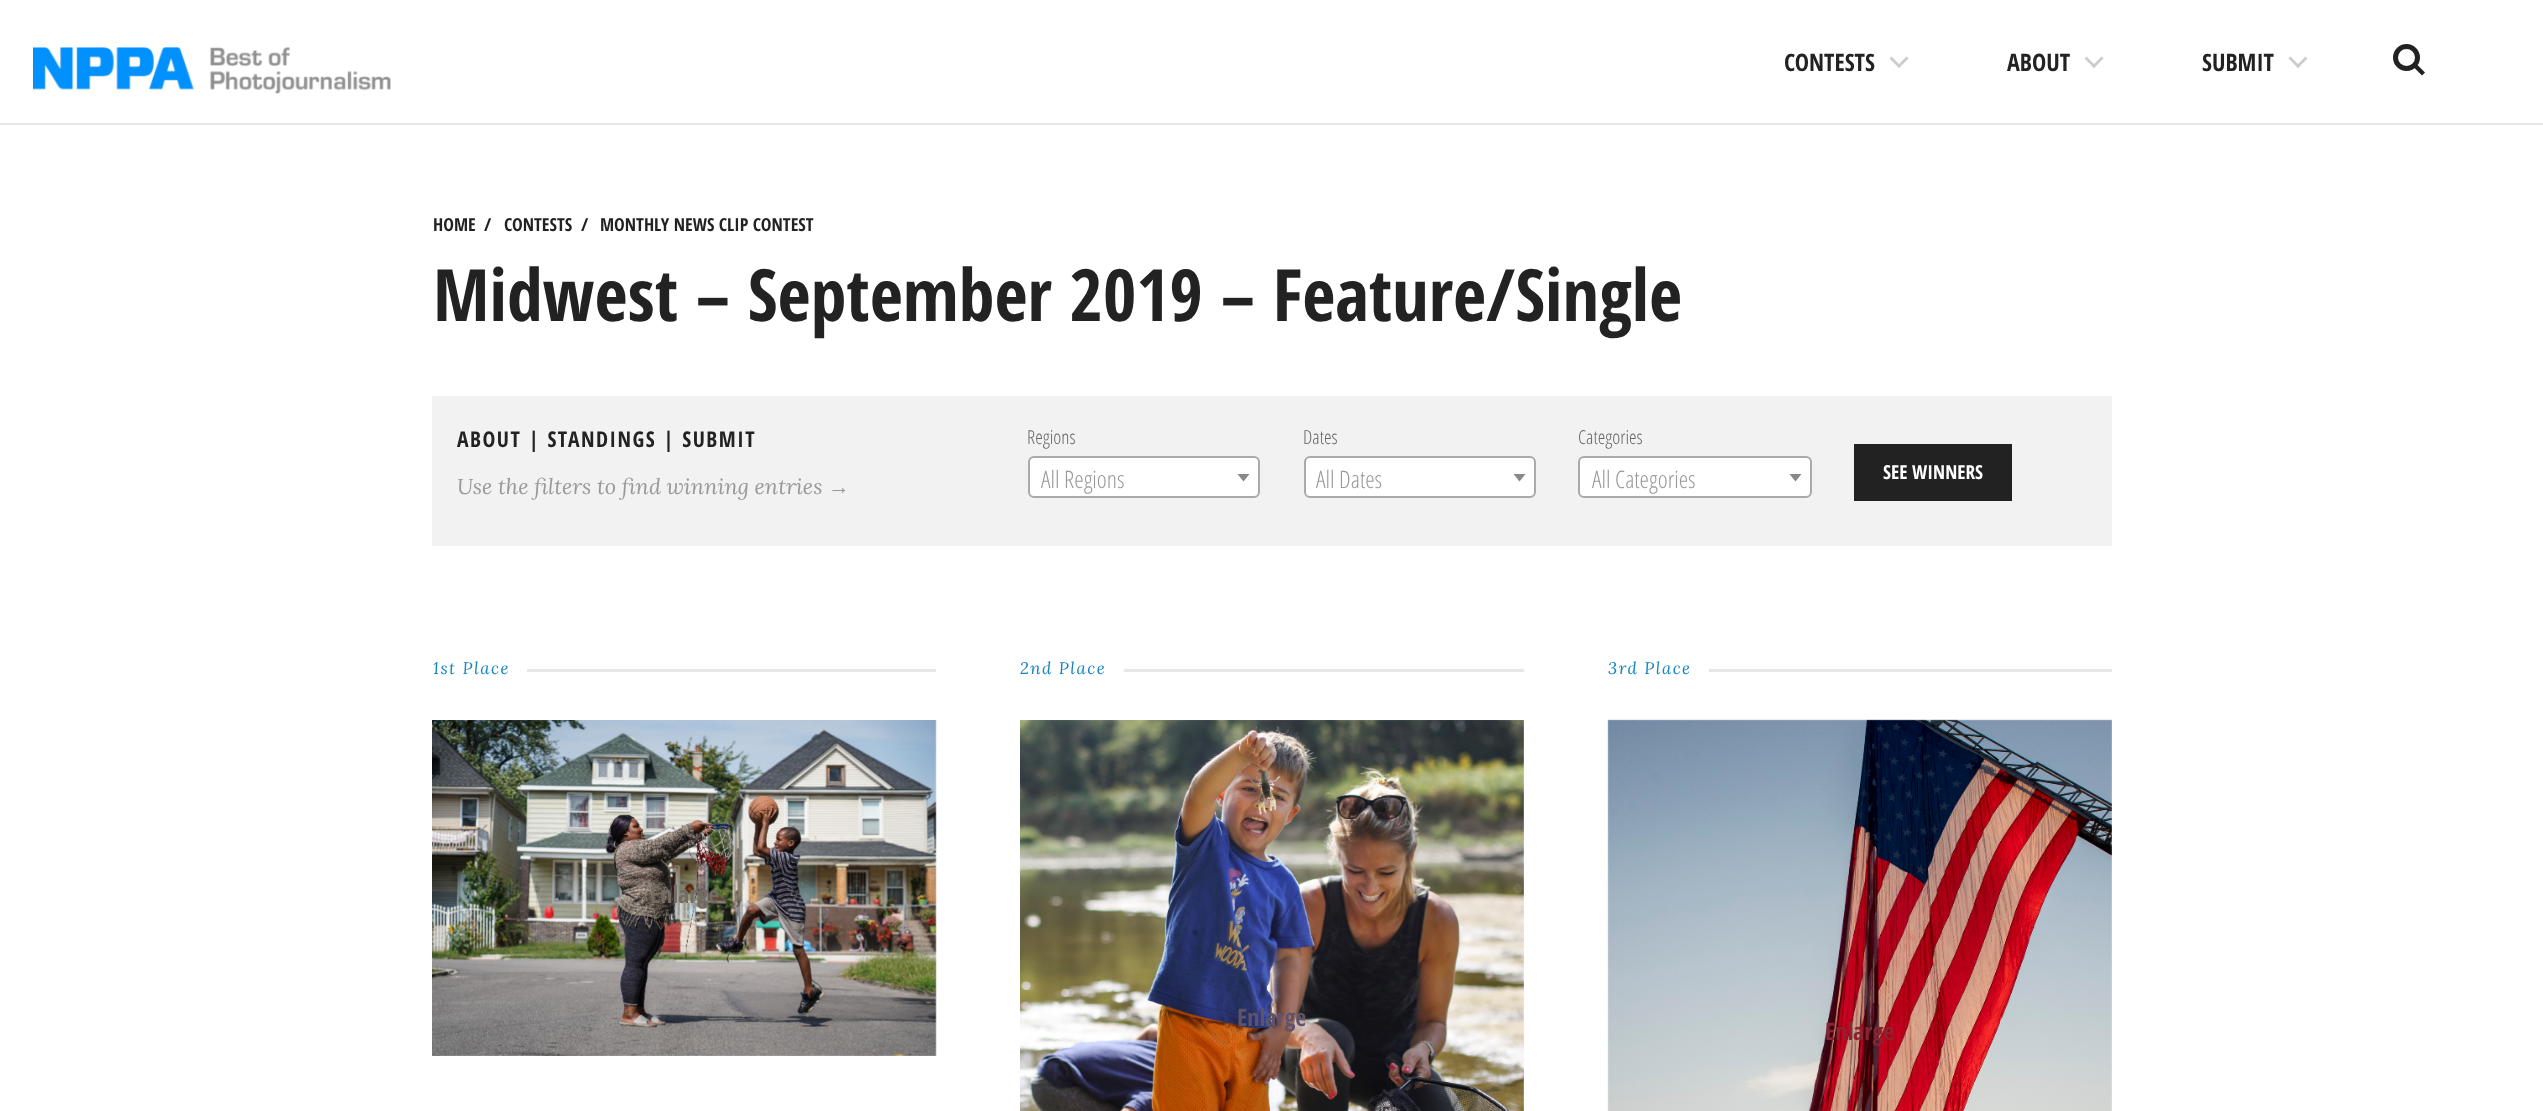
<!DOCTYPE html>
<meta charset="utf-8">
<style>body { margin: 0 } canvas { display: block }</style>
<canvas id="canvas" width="2543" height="1111"></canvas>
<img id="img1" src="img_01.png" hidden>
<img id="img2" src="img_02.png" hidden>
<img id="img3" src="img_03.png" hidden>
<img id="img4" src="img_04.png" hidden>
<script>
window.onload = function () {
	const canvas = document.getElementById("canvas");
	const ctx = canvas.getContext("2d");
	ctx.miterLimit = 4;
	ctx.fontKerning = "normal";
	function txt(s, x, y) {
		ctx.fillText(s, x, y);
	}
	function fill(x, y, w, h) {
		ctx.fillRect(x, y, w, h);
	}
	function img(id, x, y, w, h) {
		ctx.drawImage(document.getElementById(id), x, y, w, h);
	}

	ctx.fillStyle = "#FFFFFF";
	fill(0, 0, 2543, 1111);
	ctx.fillStyle = "#E6E6E6";
	fill(0, 123, 2543, 2);
	img("img1", 33, 46, 358, 48);
	ctx.fillStyle = "#CCCCCC";
	ctx.beginPath();
	ctx.moveTo(1891.5, 56.5);
	ctx.lineTo(1901, 66);
	ctx.lineTo(1899, 68);
	ctx.lineTo(1889.5, 58.5);
	ctx.closePath();
	ctx.fill();
	ctx.beginPath();
	ctx.moveTo(1897, 66);
	ctx.lineTo(1906.5, 56.5);
	ctx.lineTo(1908.5, 58.5);
	ctx.lineTo(1899, 68);
	ctx.closePath();
	ctx.fill();
	ctx.beginPath();
	ctx.moveTo(2086.5, 56.5);
	ctx.lineTo(2096, 66);
	ctx.lineTo(2094, 68);
	ctx.lineTo(2084.5, 58.5);
	ctx.closePath();
	ctx.fill();
	ctx.beginPath();
	ctx.moveTo(2092, 66);
	ctx.lineTo(2101.5, 56.5);
	ctx.lineTo(2103.5, 58.5);
	ctx.lineTo(2094, 68);
	ctx.closePath();
	ctx.fill();
	ctx.beginPath();
	ctx.moveTo(2290.5, 56.5);
	ctx.lineTo(2300, 66);
	ctx.lineTo(2298, 68);
	ctx.lineTo(2288.5, 58.5);
	ctx.closePath();
	ctx.fill();
	ctx.beginPath();
	ctx.moveTo(2296, 66);
	ctx.lineTo(2305.5, 56.5);
	ctx.lineTo(2307.5, 58.5);
	ctx.lineTo(2298, 68);
	ctx.closePath();
	ctx.fill();
	ctx.beginPath();
	ctx.arc(2406.5, 57.5, 11, 0, Math.PI * 2);
	ctx.strokeStyle = "#222222";
	ctx.lineWidth = 5;
	ctx.stroke();
	ctx.fillStyle = "#222222";
	ctx.beginPath();
	ctx.moveTo(2416.5, 64);
	ctx.lineTo(2425, 72.5);
	ctx.lineTo(2422, 75.5);
	ctx.lineTo(2413.5, 67);
	ctx.closePath();
	ctx.fill();
	ctx.fillStyle = "#F2F2F2";
	fill(432, 396, 1680, 150);
	ctx.fillStyle = "#FFFFFF";
	ctx.beginPath();
	ctx.roundRect(1029, 457, 230, 40, 5);
	ctx.fill();
	ctx.strokeStyle = "#AAAAAA";
	ctx.lineWidth = 2;
	ctx.stroke();
	ctx.fillStyle = "#888888";
	ctx.beginPath();
	ctx.moveTo(1237.5, 474);
	ctx.lineTo(1249.5, 474);
	ctx.lineTo(1243.5, 481.5);
	ctx.closePath();
	ctx.fill();
	ctx.fillStyle = "#FFFFFF";
	ctx.beginPath();
	ctx.roundRect(1305, 457, 230, 40, 5);
	ctx.fill();
	ctx.stroke();
	ctx.fillStyle = "#888888";
	ctx.beginPath();
	ctx.moveTo(1513.5, 474);
	ctx.lineTo(1525.5, 474);
	ctx.lineTo(1519.5, 481.5);
	ctx.closePath();
	ctx.fill();
	ctx.fillStyle = "#FFFFFF";
	ctx.beginPath();
	ctx.roundRect(1579, 457, 232, 40, 5);
	ctx.fill();
	ctx.stroke();
	ctx.fillStyle = "#888888";
	ctx.beginPath();
	ctx.moveTo(1789.5, 474);
	ctx.lineTo(1801.5, 474);
	ctx.lineTo(1795.5, 481.5);
	ctx.closePath();
	ctx.fill();
	ctx.fillStyle = "#222222";
	fill(1854, 444, 158, 57);
	ctx.fillStyle = "#E6E6E6";
	fill(527, 669, 409, 3);
	img("img2", 432, 720, 505, 336);
	fill(1124, 669, 400, 3);
	img("img3", 1020, 720, 504, 391);
	fill(1709, 669, 403, 3);
	img("img4", 1607, 719, 505, 392);
	ctx.font = "bold 24px Open Sans Condensed";
	ctx.fillStyle = "#222222";
	txt("CONTESTS", 1784, 71);
	txt("ABOUT", 2007, 71);
	txt("SUBMIT", 2202, 71);
	ctx.font = "bold 18px Open Sans Condensed";
	txt("HOME", 433, 231);
	txt("/", 484, 231);
	txt("CONTESTS", 504, 231);
	txt("/", 581, 231);
	txt("MONTHLY NEWS CLIP CONTEST", 600, 231);
	ctx.font = "bold 72px Open Sans Condensed";
	txt("Midwest – September 2019 – Feature/Single", 433, 321);
	ctx.letterSpacing = "1.5px";
	ctx.font = "bold 21.6px Open Sans Condensed";
	txt("ABOUT | STANDINGS | SUBMIT", 457, 447);
	ctx.letterSpacing = "0px";
	ctx.font = "italic 21.6px Lora";
	ctx.fillStyle = "#999999";
	txt("Use the filters to find winning entries", 457, 494);
	ctx.font = "italic 21.6px Liberation Serif";
	txt("→", 828, 494);
	ctx.font = "300 19.25px Open Sans Condensed";
	ctx.fillStyle = "#666666";
	txt("Regions", 1027, 444);
	ctx.font = "300 24px Open Sans Condensed";
	ctx.fillStyle = "#999999";
	txt("All Regions", 1041, 488);
	ctx.font = "300 19.25px Open Sans Condensed";
	ctx.fillStyle = "#666666";
	txt("Dates", 1303, 444);
	ctx.font = "300 24px Open Sans Condensed";
	ctx.fillStyle = "#999999";
	txt("All Dates", 1316, 488);
	ctx.font = "300 19.25px Open Sans Condensed";
	ctx.fillStyle = "#666666";
	txt("Categories", 1578, 444);
	ctx.font = "300 24px Open Sans Condensed";
	ctx.fillStyle = "#999999";
	txt("All Categories", 1592, 488);
	ctx.font = "bold 19.25px Open Sans Condensed";
	ctx.fillStyle = "#FFFFFF";
	txt("SEE WINNERS", 1883, 479);
	ctx.letterSpacing = "1.5px";
	ctx.font = "italic 16.75px Lora";
	ctx.fillStyle = "#1483C5";
	txt("1st Place", 433, 674);
	ctx.letterSpacing = "0px";
	ctx.font = "bold 24px Open Sans Condensed";
	ctx.fillStyle = "#736C63";
	txt("Enlarge", 650, 903);
	ctx.letterSpacing = "1.5px";
	ctx.font = "italic 16.75px Lora";
	ctx.fillStyle = "#1483C5";
	txt("2nd Place", 1020, 674);
	ctx.letterSpacing = "0px";
	ctx.font = "bold 24px Open Sans Condensed";
	ctx.fillStyle = "#5F536C";
	txt("Enlarge", 1237, 1026);
	ctx.letterSpacing = "1.5px";
	ctx.font = "italic 16.75px Lora";
	ctx.fillStyle = "#1483C5";
	txt("3rd Place", 1608, 674);
	ctx.letterSpacing = "0px";
	ctx.font = "bold 24px Open Sans Condensed";
	ctx.fillStyle = "#892430";
	txt("Enlarge", 1825, 1040);
};
</script>
